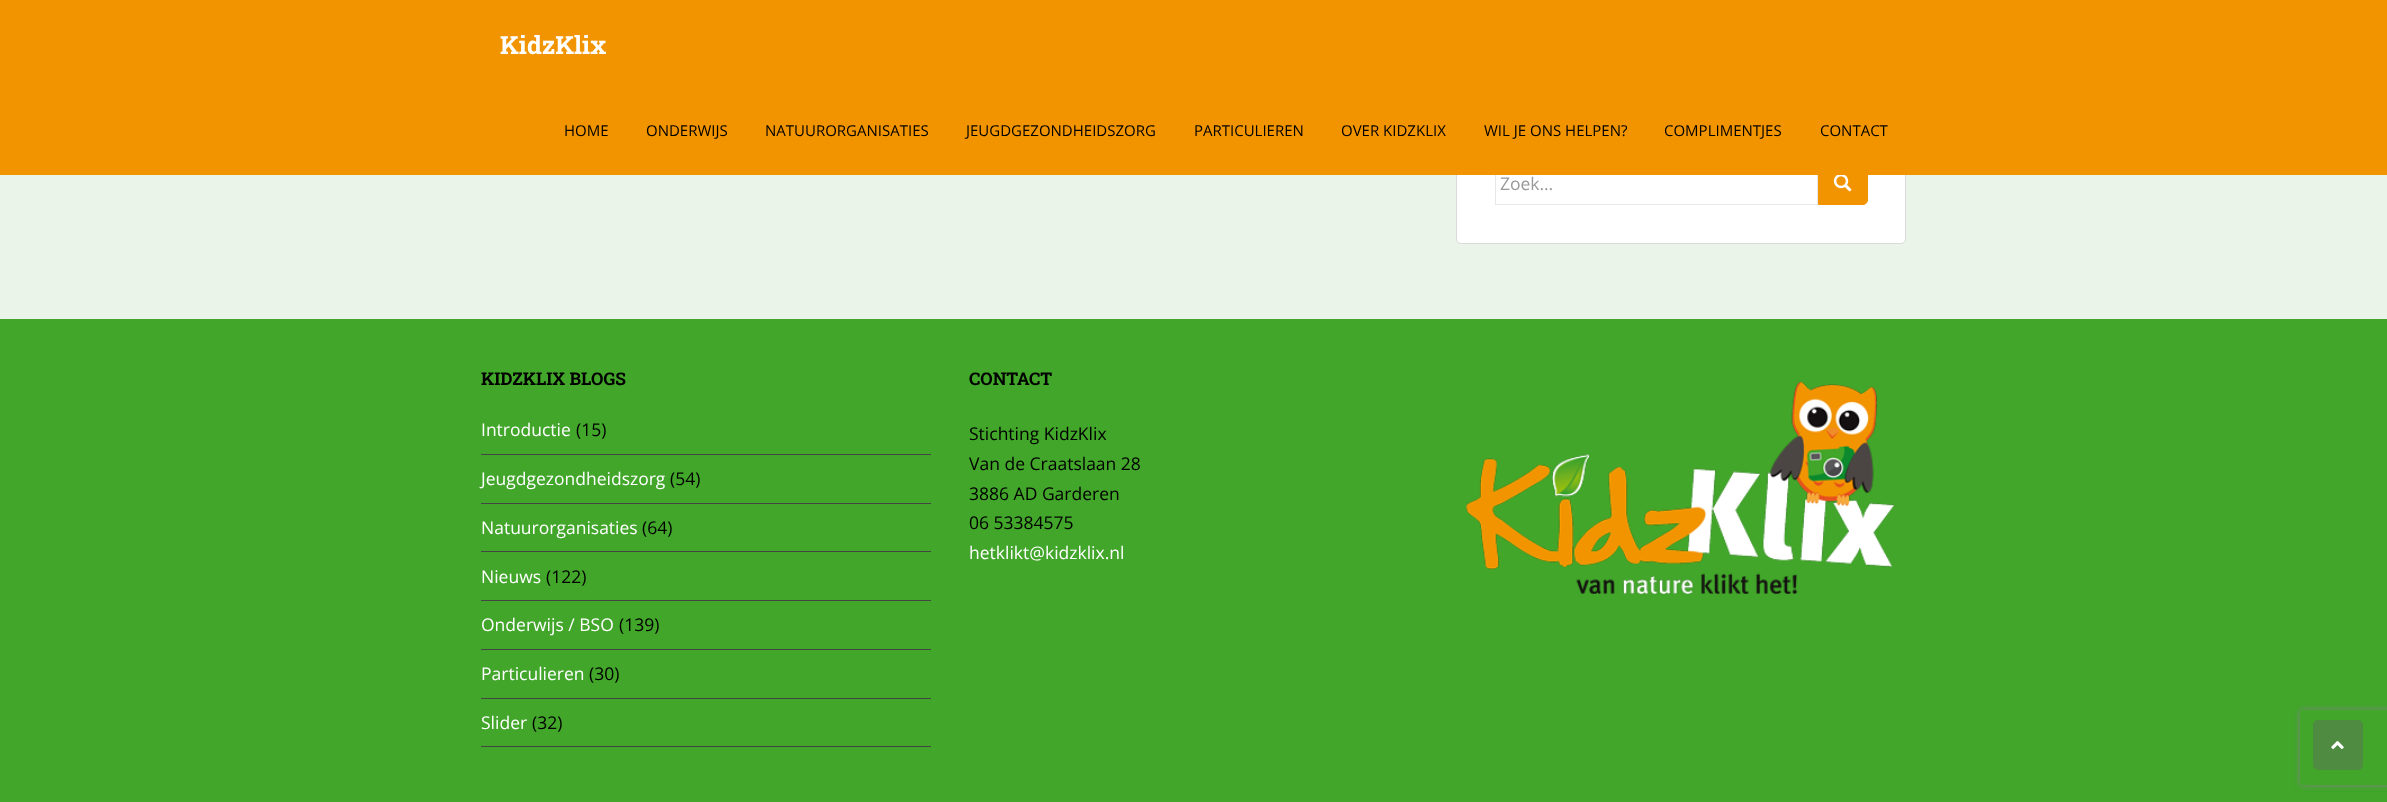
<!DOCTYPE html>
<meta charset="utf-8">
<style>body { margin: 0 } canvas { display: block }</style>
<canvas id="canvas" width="2387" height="802"></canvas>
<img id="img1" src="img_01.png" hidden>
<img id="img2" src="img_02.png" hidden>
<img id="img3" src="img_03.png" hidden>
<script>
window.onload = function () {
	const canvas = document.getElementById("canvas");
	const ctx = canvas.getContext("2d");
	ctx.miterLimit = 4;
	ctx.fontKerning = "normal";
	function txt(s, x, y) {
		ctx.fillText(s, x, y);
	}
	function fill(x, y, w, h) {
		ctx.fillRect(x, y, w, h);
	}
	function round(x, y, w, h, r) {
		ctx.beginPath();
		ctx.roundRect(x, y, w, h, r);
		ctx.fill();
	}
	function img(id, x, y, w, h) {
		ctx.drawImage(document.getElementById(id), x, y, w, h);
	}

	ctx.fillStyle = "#EBF4E8";
	fill(0, 0, 2387, 802);
	ctx.fillStyle = "#FFFFFF";
	ctx.beginPath();
	ctx.roundRect(1456.5, -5.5, 449, 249, 4.5);
	ctx.fill();
	ctx.strokeStyle = "#DADADA";
	ctx.stroke();
	ctx.strokeStyle = "#E8E8E8";
	ctx.strokeRect(1495.5, 163.5, 322, 41);
	ctx.fillStyle = "#F29400";
	ctx.beginPath();
	ctx.roundRect(1818.5, 163.5, 49, 41, [0, 4.5, 4.5, 0]);
	ctx.fill();
	ctx.strokeStyle = "#F29400";
	ctx.stroke();
	fill(0, 0, 2387, 175);
	img("img1", 1833, 175, 19, 17);
	ctx.fillStyle = "#41A62A";
	fill(0, 319, 2387, 483);
	ctx.fillStyle = "#444444";
	fill(481, 454, 450, 1);
	fill(481, 503, 450, 1);
	fill(481, 551, 450, 1);
	fill(481, 600, 450, 1);
	fill(481, 649, 450, 1);
	fill(481, 698, 450, 1);
	fill(481, 746, 450, 1);
	img("img2", 1466, 381, 429, 214);
	ctx.save();
	ctx.beginPath();
	ctx.moveTo(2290, 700);
	ctx.lineTo(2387, 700);
	ctx.lineTo(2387, 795);
	ctx.lineTo(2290, 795);
	ctx.closePath();
	ctx.moveTo(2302.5, 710);
	ctx.lineTo(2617.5, 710);
	ctx.bezierCurveTo(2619, 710, 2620, 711, 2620, 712.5);
	ctx.lineTo(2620, 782.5);
	ctx.bezierCurveTo(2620, 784, 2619, 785, 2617.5, 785);
	ctx.lineTo(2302.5, 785);
	ctx.bezierCurveTo(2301, 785, 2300, 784, 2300, 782.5);
	ctx.lineTo(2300, 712.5);
	ctx.bezierCurveTo(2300, 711, 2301, 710, 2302.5, 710);
	ctx.closePath();
	ctx.clip("evenodd");
	ctx.fillStyle = "#808080";
	ctx.filter = "blur(3px)";
	ctx.beginPath();
	ctx.roundRect(2300, 710, 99, 75, 2.5);
	ctx.fill();
	ctx.filter = "none";
	ctx.restore();
	ctx.fillStyle = "#4F8C41";
	round(2313, 720, 50, 50, 5);
	img("img3", 2331, 741, 13, 8);
	ctx.font = "bold 25px Roboto Slab";
	ctx.fillStyle = "#FFFFFF";
	txt("KidzKlix", 500, 54);
	ctx.font = "15px Open Sans";
	ctx.fillStyle = "#000000";
	txt("HOME", 564, 136);
	txt("ONDERWIJS", 646, 136);
	txt("NATUURORGANISATIES", 765, 136);
	txt("JEUGDGEZONDHEIDSZORG", 966, 136);
	txt("PARTICULIEREN", 1194, 136);
	txt("OVER KIDZKLIX", 1341, 136);
	txt("WIL JE ONS HELPEN?", 1484, 136);
	txt("COMPLIMENTJES", 1664, 136);
	txt("CONTACT", 1820, 136);
	ctx.font = "17.5px Open Sans";
	ctx.fillStyle = "#999999";
	txt("Zoek…", 1500, 190);
	ctx.font = "bold 17.5px Roboto Slab";
	ctx.fillStyle = "#000000";
	txt("KIDZKLIX BLOGS", 481, 385);
	ctx.font = "17.5px Open Sans";
	ctx.fillStyle = "#FFFFFF";
	txt("Introductie", 481, 436);
	ctx.fillStyle = "#000000";
	txt("(15)", 576, 436);
	ctx.fillStyle = "#FFFFFF";
	txt("Jeugdgezondheidszorg", 481, 485);
	ctx.fillStyle = "#000000";
	txt("(54)", 670, 485);
	ctx.fillStyle = "#FFFFFF";
	txt("Natuurorganisaties", 481, 534);
	ctx.fillStyle = "#000000";
	txt("(64)", 642, 534);
	ctx.fillStyle = "#FFFFFF";
	txt("Nieuws", 481, 583);
	ctx.fillStyle = "#000000";
	txt("(122)", 546, 583);
	ctx.fillStyle = "#FFFFFF";
	txt("Onderwijs / BSO", 481, 631);
	ctx.fillStyle = "#000000";
	txt("(139)", 619, 631);
	ctx.fillStyle = "#FFFFFF";
	txt("Particulieren", 481, 680);
	ctx.fillStyle = "#000000";
	txt("(30)", 589, 680);
	ctx.fillStyle = "#FFFFFF";
	txt("Slider", 481, 729);
	ctx.fillStyle = "#000000";
	txt("(32)", 532, 729);
	ctx.font = "bold 17.5px Roboto Slab";
	txt("CONTACT", 969, 385);
	ctx.font = "17.5px Open Sans";
	txt("Stichting KidzKlix", 969, 440);
	txt("Van de Craatslaan 28", 969, 470);
	txt("3886 AD Garderen", 969, 500);
	txt("06 53384575", 969, 529);
	ctx.fillStyle = "#FFFFFF";
	txt("hetklikt@kidzklix.nl", 969, 559);
};
</script>
